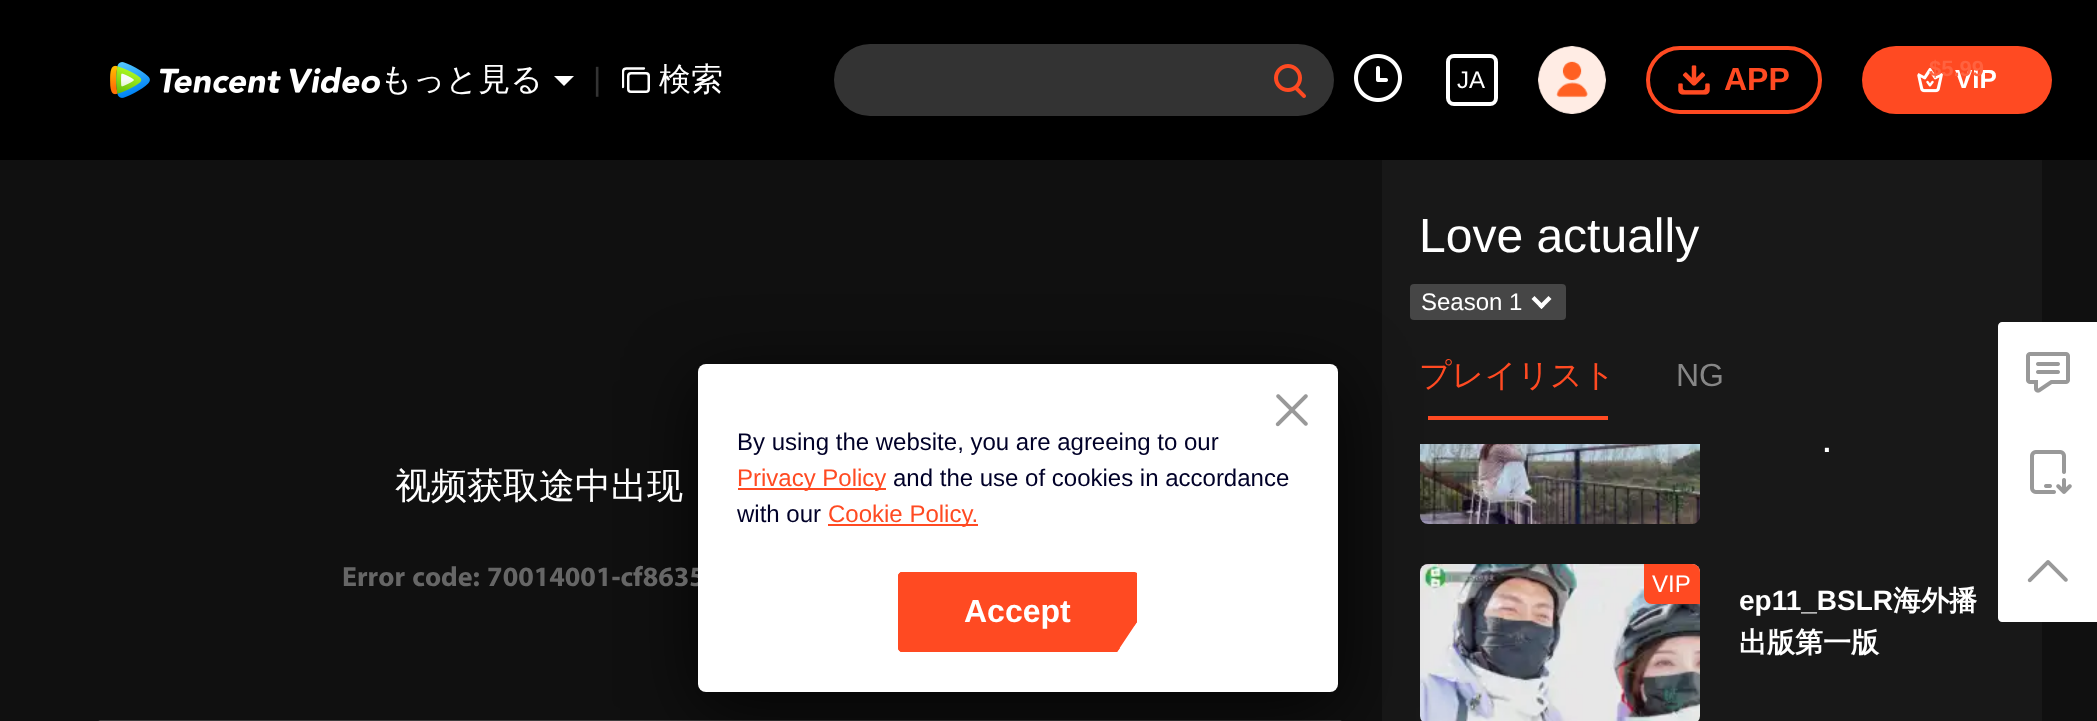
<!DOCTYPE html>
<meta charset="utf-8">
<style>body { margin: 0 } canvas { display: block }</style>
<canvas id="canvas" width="2097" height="721"></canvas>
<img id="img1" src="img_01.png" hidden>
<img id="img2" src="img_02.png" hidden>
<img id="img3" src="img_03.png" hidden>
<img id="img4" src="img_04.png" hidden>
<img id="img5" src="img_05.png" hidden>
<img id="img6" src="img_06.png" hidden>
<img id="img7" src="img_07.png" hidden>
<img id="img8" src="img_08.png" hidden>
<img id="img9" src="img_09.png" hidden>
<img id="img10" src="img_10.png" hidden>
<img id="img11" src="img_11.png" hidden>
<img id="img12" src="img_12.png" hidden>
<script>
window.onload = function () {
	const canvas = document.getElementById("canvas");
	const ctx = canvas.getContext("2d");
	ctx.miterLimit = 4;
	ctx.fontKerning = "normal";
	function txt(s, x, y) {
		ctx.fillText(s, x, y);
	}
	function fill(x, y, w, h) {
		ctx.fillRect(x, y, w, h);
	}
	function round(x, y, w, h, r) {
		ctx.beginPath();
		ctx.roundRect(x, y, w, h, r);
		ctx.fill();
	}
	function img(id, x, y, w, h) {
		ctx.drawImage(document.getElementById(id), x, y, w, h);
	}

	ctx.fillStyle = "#101010";
	fill(0, 0, 2097, 721);
	ctx.fillStyle = "#000000";
	fill(0, 0, 2097, 160);
	img("img1", 110, 62, 270, 36);
	ctx.fillStyle = "#FFFFFF";
	ctx.beginPath();
	ctx.moveTo(554, 76);
	ctx.lineTo(574, 76);
	ctx.lineTo(564, 86);
	ctx.closePath();
	ctx.fill();
	ctx.beginPath();
	ctx.roundRect(628.25, 73.25, 20.5, 18.5, 2.75);
	ctx.strokeStyle = "#FFFFFF";
	ctx.lineWidth = 2.5;
	ctx.stroke();
	ctx.save();
	ctx.beginPath();
	ctx.rect(622, 66, 28, 28);
	ctx.clip();
	ctx.beginPath();
	ctx.moveTo(644, 68.5);
	ctx.lineTo(626.5, 68.5);
	ctx.bezierCurveTo(624.5, 68.5, 623, 70, 623, 72);
	ctx.lineTo(623, 87);
	ctx.lineWidth = 2.3;
	ctx.lineCap = "round";
	ctx.stroke();
	ctx.restore();
	ctx.fillStyle = "#333333";
	round(834, 44, 500, 72, 36);
	img("img2", 1274, 64, 32, 34);
	img("img3", 1354, 54, 48, 48);
	ctx.beginPath();
	ctx.roundRect(1448, 56, 48, 48, 6);
	ctx.lineWidth = 4;
	ctx.stroke();
	img("img4", 1538, 46, 68, 68);
	ctx.beginPath();
	ctx.roundRect(1648, 48, 172, 64, 32);
	ctx.strokeStyle = "#FF4A22";
	ctx.stroke();
	img("img5", 1678, 65, 32, 30);
	ctx.fillStyle = "#FF4A22";
	round(1862, 46, 190, 68, 34);
	img("img6", 1917, 67, 26, 26);
	ctx.fillStyle = "#3E3E3E";
	round(98, 720, 1244, 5, 4);
	ctx.fillStyle = "#181818";
	fill(1382, 160, 660, 561);
	ctx.fillStyle = "#464646";
	round(1410, 284, 156, 36, 4);
	ctx.fillStyle = "#FFFFFF";
	ctx.beginPath();
	ctx.moveTo(1538.5, 306);
	ctx.lineTo(1548.5, 296);
	ctx.lineTo(1551.5, 299);
	ctx.lineTo(1541.5, 309);
	ctx.closePath();
	ctx.fill();
	ctx.beginPath();
	ctx.moveTo(1531.5, 299);
	ctx.lineTo(1534.5, 296);
	ctx.lineTo(1544.5, 306);
	ctx.lineTo(1541.5, 309);
	ctx.closePath();
	ctx.fill();
	ctx.fillStyle = "#FF4A22";
	fill(1428, 416, 180, 4);
	img("img7", 1420, 444, 280, 80);
	img("img8", 1420, 564, 280, 157);
	ctx.beginPath();
	ctx.roundRect(1644, 564, 56, 40, [0, 8, 0, 8]);
	ctx.fill();
	ctx.fillStyle = "#FFFFFF";
	ctx.beginPath();
	ctx.moveTo(2002, 322);
	ctx.lineTo(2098, 322);
	ctx.lineTo(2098, 622);
	ctx.lineTo(2002, 622);
	ctx.bezierCurveTo(2000, 622, 1998, 620, 1998, 618);
	ctx.lineTo(1998, 326);
	ctx.bezierCurveTo(1998, 324, 2000, 322, 2002, 322);
	ctx.closePath();
	ctx.fill();
	img("img9", 2026, 352, 44, 41);
	img("img10", 2030, 450, 42, 44);
	img("img11", 2027, 560, 41, 23);
	ctx.fillStyle = "rgba(0, 0, 0, 0.8)";
	ctx.filter = "blur(36px)";
	ctx.beginPath();
	ctx.roundRect(698, 380, 640, 328, 8);
	ctx.fill();
	ctx.filter = "none";
	ctx.font = "500 32px WenQuanYi Zen Hei";
	ctx.fillStyle = "#FFFFFF";
	txt("もっと見る", 380, 90);
	ctx.font = "32px Liberation Sans";
	ctx.fillStyle = "#333333";
	txt("|", 593, 90);
	ctx.font = "500 32px WenQuanYi Zen Hei";
	ctx.fillStyle = "#FFFFFF";
	txt("検索", 659, 90);
	ctx.font = "24px Liberation Sans";
	txt("JA", 1457, 88);
	ctx.font = "bold 32px Liberation Sans";
	ctx.fillStyle = "#FF4A22";
	txt("APP", 1724, 90);
	ctx.font = "bold 26px Liberation Sans";
	ctx.fillStyle = "#FFFFFF";
	txt("VIP", 1955, 88);
	ctx.font = "bold 22px Liberation Sans";
	ctx.fillStyle = "#FF623F";
	txt("$5.99", 1929, 76);
	ctx.font = "500 36px WenQuanYi Zen Hei";
	ctx.fillStyle = "#FFFFFF";
	txt("视频获取途中出现", 395, 498);
	ctx.font = "bold 28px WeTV";
	ctx.fillStyle = "#666666";
	txt("Error code: 70014001-cf8635", 342, 586);
	ctx.font = "48px Liberation Sans";
	ctx.fillStyle = "#FFFFFF";
	txt("Love actually", 1419, 252);
	ctx.font = "24px Liberation Sans";
	txt("Season 1", 1421, 310);
	ctx.font = "500 32px WenQuanYi Zen Hei";
	ctx.fillStyle = "#FF4A22";
	txt("プレイリスト", 1419, 386);
	ctx.font = "32px Liberation Sans";
	ctx.fillStyle = "#868686";
	txt("NG", 1676, 386);
	ctx.font = "bold 28px Liberation Sans";
	ctx.fillStyle = "#FFFFFF";
	txt(".", 1823, 452);
	ctx.font = "24px Liberation Sans";
	txt("VIP", 1652, 592);
	ctx.font = "bold 28px Liberation Sans";
	txt("ep11_BSLR", 1739, 610);
	ctx.font = "bold 28px WenQuanYi Zen Hei";
	txt("海外播", 1893, 610);
	txt("出版第一版", 1739, 652);
	round(698, 364, 640, 328, 8);
	img("img12", 1275, 394, 33, 33);
	ctx.font = "24px Liberation Sans";
	ctx.fillStyle = "#000028";
	txt("By using the website, you are agreeing to our", 737, 450);
	ctx.fillStyle = "#FF4A22";
	fill(738, 488, 148, 2);
	txt("Privacy Policy", 737, 486);
	ctx.fillStyle = "#000028";
	txt("and the use of cookies in accordance", 893, 486);
	txt("with our", 737, 522);
	ctx.fillStyle = "#FF4A22";
	fill(828, 524, 150, 2);
	txt("Cookie Policy.", 828, 522);
	ctx.beginPath();
	ctx.moveTo(902, 572);
	ctx.bezierCurveTo(900, 572, 898, 574, 898, 576);
	ctx.lineTo(898, 648);
	ctx.bezierCurveTo(898, 650, 900, 652, 902, 652);
	ctx.lineTo(1117, 652);
	ctx.lineTo(1137, 622);
	ctx.lineTo(1137, 573);
	ctx.bezierCurveTo(1136, 573, 1135, 572, 1134, 572);
	ctx.closePath();
	ctx.fill();
	ctx.beginPath();
	ctx.moveTo(902, 572);
	ctx.bezierCurveTo(900, 572, 898, 574, 898, 576);
	ctx.lineTo(898, 648);
	ctx.bezierCurveTo(898, 650, 900, 652, 902, 652);
	ctx.lineTo(1117, 652);
	ctx.lineTo(1120, 648);
	ctx.lineTo(902, 648);
	ctx.lineTo(902, 576);
	ctx.lineTo(1134, 576);
	ctx.lineTo(1134, 626);
	ctx.lineTo(1137, 622);
	ctx.lineTo(1137, 573);
	ctx.bezierCurveTo(1136, 573, 1135, 572, 1134, 572);
	ctx.closePath();
	ctx.fill();
	ctx.font = "bold 32px Liberation Sans";
	ctx.fillStyle = "#FFFFFF";
	txt("Accept", 964, 622);
};
</script>
